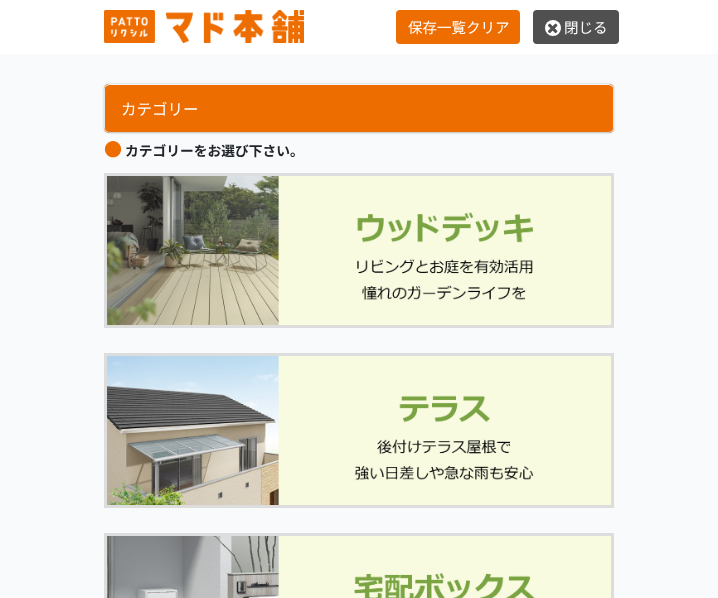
<!DOCTYPE html>
<meta charset="utf-8">
<style>body { margin: 0 } canvas { display: block }</style>
<canvas id="canvas" width="718" height="598"></canvas>
<img id="img1" src="img_01.png" hidden>
<img id="img2" src="img_02.png" hidden>
<img id="img3" src="img_03.png" hidden>
<img id="img4" src="img_04.png" hidden>
<img id="img5" src="img_05.png" hidden>
<script>
window.onload = function () {
	const canvas = document.getElementById("canvas");
	const ctx = canvas.getContext("2d");
	ctx.miterLimit = 4;
	ctx.fontKerning = "normal";
	function txt(s, x, y) {
		ctx.fillText(s, x, y);
	}
	function fill(x, y, w, h) {
		ctx.fillRect(x, y, w, h);
	}
	function round(x, y, w, h, r) {
		ctx.beginPath();
		ctx.roundRect(x, y, w, h, r);
		ctx.fill();
	}
	function img(id, x, y, w, h) {
		ctx.drawImage(document.getElementById(id), x, y, w, h);
	}

	ctx.fillStyle = "#F8FAFC";
	fill(0, 0, 718, 598);
	ctx.fillStyle = "#FFFFFF";
	fill(0, 0, 718, 54);
	img("img1", 104, 10, 200, 33);
	ctx.fillStyle = "#ED6D00";
	round(396, 10, 124, 34, 4);
	ctx.fillStyle = "#505050";
	round(533, 10, 86, 34, 4);
	ctx.fillStyle = "#FFFFFF";
	ctx.beginPath();
	ctx.arc(553, 28, 8, 0, Math.PI * 2);
	ctx.fill();
	img("img2", 547, 23, 11, 11);
	ctx.fillStyle = "rgba(0, 0, 0, 0.2)";
	ctx.filter = "blur(1px)";
	ctx.beginPath();
	ctx.roundRect(104, 84, 510, 49, 5);
	ctx.fill();
	ctx.filter = "none";
	ctx.fillStyle = "#ED6D00";
	round(104, 84, 510, 49, 5);
	ctx.beginPath();
	ctx.moveTo(106, 86);
	ctx.lineTo(109, 84.5);
	ctx.lineTo(609, 84.5);
	ctx.lineTo(612, 86);
	ctx.strokeStyle = "#F5F5F5";
	ctx.stroke();
	ctx.beginPath();
	ctx.moveTo(612, 86);
	ctx.bezierCurveTo(613, 86.5, 613.5, 88, 613.5, 89);
	ctx.lineTo(613.5, 128);
	ctx.bezierCurveTo(613.5, 129, 613, 130.5, 612, 131);
	ctx.strokeStyle = "#E5E5E5";
	ctx.stroke();
	ctx.beginPath();
	ctx.moveTo(612, 131);
	ctx.lineTo(609, 132.5);
	ctx.lineTo(109, 132.5);
	ctx.lineTo(106, 131);
	ctx.strokeStyle = "#CCCCCC";
	ctx.stroke();
	ctx.beginPath();
	ctx.moveTo(106, 131);
	ctx.bezierCurveTo(105, 130.5, 104.5, 129, 104.5, 128);
	ctx.lineTo(104.5, 89);
	ctx.bezierCurveTo(104.5, 88, 105, 86.5, 106, 86);
	ctx.strokeStyle = "#E5E5E5";
	ctx.stroke();
	ctx.strokeStyle = "#DDDDDD";
	ctx.lineWidth = 3;
	ctx.strokeRect(105.5, 174.5, 507, 152);
	img("img3", 107, 176, 504, 149);
	ctx.strokeRect(105.5, 354.5, 507, 152);
	img("img4", 107, 356, 504, 149);
	ctx.strokeRect(105.5, 534.5, 507, 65);
	img("img5", 107, 536, 504, 62);
	ctx.font = "14.5px Noto Sans JP";
	ctx.fillStyle = "#FFFFFF";
	txt("保存一覧クリア", 408, 33);
	txt("閉じる", 564, 33);
	ctx.font = "15.5px Noto Sans JP";
	txt("カテゴリー", 121, 115);
	ctx.font = "bold 18px Noto Sans JP";
	ctx.fillStyle = "#ED6D00";
	txt("●", 104, 156);
	ctx.font = "bold 13.75px Noto Sans JP";
	ctx.fillStyle = "#212529";
	txt("カテゴリーをお選び下さい。", 125, 156);
};
</script>
